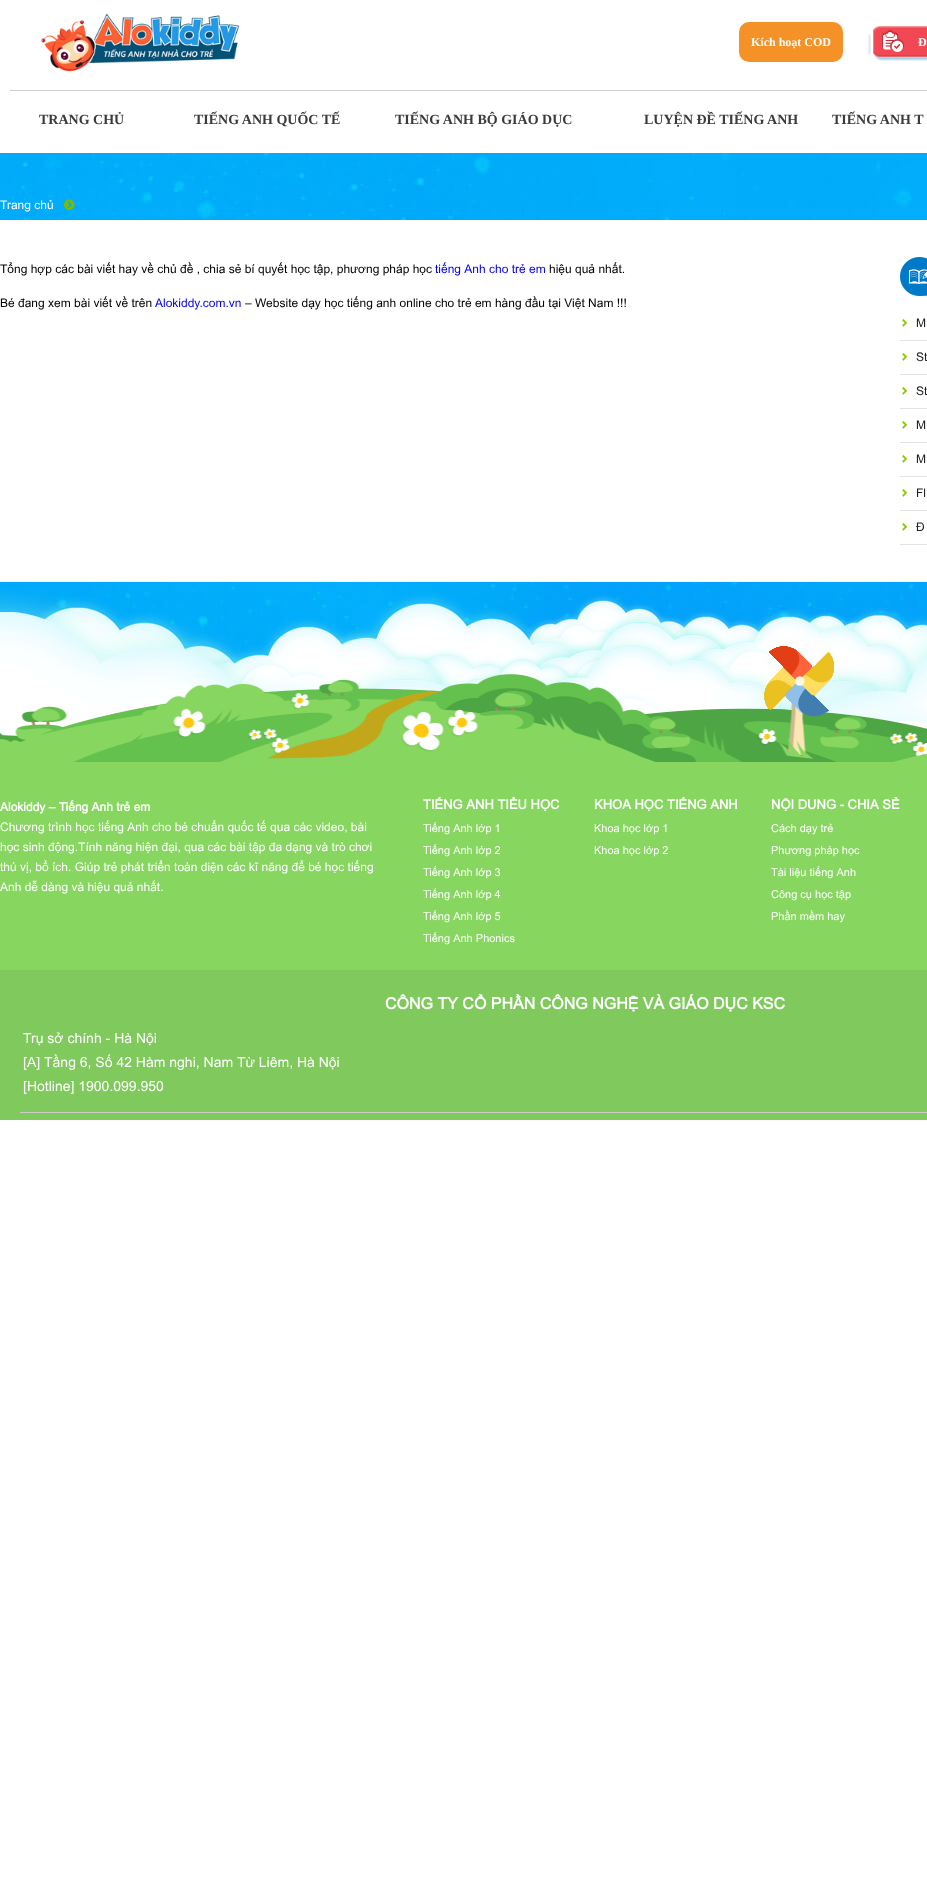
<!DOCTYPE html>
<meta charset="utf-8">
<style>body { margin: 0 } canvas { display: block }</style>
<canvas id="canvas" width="927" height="1904"></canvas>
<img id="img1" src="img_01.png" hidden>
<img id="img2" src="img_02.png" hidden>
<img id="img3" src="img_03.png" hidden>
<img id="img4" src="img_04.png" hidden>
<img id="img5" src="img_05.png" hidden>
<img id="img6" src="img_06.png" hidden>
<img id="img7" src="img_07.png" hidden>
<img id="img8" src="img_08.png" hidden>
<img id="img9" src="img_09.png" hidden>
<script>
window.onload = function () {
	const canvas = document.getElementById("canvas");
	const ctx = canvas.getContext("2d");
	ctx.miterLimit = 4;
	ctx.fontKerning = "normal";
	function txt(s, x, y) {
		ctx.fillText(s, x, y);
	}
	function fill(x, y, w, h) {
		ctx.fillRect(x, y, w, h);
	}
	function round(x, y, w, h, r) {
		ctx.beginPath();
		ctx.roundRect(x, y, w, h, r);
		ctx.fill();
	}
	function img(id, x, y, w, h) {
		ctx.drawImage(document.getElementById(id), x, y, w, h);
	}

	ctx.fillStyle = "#FFFFFF";
	fill(0, 0, 927, 1904);
	img("img1", 0, 153, 927, 517);
	ctx.fillStyle = "#CCCCCC";
	fill(10, 90, 917, 1);
	img("img2", 40, 14, 200, 58);
	ctx.fillStyle = "#F49227";
	round(739, 22, 104, 40, 10);
	img("img3", 868, 26, 59, 35);
	img("img4", 64, 199, 11, 11);
	ctx.fillStyle = "#FFFFFF";
	fill(0, 220, 927, 362);
	img("img5", 900, 257, 27, 39);
	ctx.fillStyle = "#E3E3E3";
	fill(900, 340, 27, 1);
	img("img6", 902, 319, 5, 8);
	fill(900, 374, 27, 1);
	img("img6", 902, 353, 5, 8);
	fill(900, 408, 27, 1);
	img("img6", 902, 387, 5, 8);
	fill(900, 442, 27, 1);
	img("img6", 902, 421, 5, 8);
	fill(900, 476, 27, 1);
	img("img6", 902, 455, 5, 8);
	fill(900, 510, 27, 1);
	img("img6", 902, 489, 5, 8);
	fill(900, 544, 27, 1);
	img("img6", 902, 523, 5, 8);
	img("img7", 0, 587, 927, 149);
	img("img8", 0, 674, 927, 88);
	img("img9", 764, 646, 71, 71);
	ctx.fillStyle = "#86D660";
	fill(0, 762, 927, 208);
	ctx.fillStyle = "#80C95D";
	fill(0, 970, 927, 150);
	ctx.fillStyle = "#CCCCCC";
	fill(20, 1112, 907, 1);
	ctx.font = "bold 12px Liberation Serif";
	ctx.fillStyle = "#FFFFFF";
	txt("Kích hoạt COD", 751, 46);
	txt("Đ", 918, 46);
	ctx.font = "bold 14px Liberation Serif";
	ctx.fillStyle = "#3B3B3D";
	txt("TRANG CHỦ", 39, 124);
	txt("TIẾNG ANH QUỐC TẾ", 194, 124);
	txt("TIẾNG ANH BỘ GIÁO DỤC", 395, 124);
	txt("LUYỆN ĐỀ TIẾNG ANH", 644, 124);
	txt("TIẾNG ANH T", 832, 124);
	ctx.font = "12px Arial";
	ctx.fillStyle = "#FFFFFF";
	txt("Trang chủ", 0, 209);
	ctx.fillStyle = "#000000";
	txt("Tổng hợp các bài viết hay về chủ đề , chia sẻ bí quyết học tập, phương pháp học", 0, 273);
	ctx.fillStyle = "#0000EE";
	txt("tiếng Anh cho trẻ em", 435, 273);
	ctx.fillStyle = "#000000";
	txt("hiệu quả nhất.", 549, 273);
	txt("Bé đang xem bài viết về trên", 0, 307);
	ctx.fillStyle = "#0000EE";
	txt("Alokiddy.com.vn", 155, 307);
	ctx.fillStyle = "#000000";
	txt("– Website dạy học tiếng anh online cho trẻ em hàng đầu tại Việt Nam !!!", 245, 307);
	ctx.fillStyle = "#222222";
	txt("M", 916, 327);
	txt("St", 916, 361);
	txt("St", 916, 395);
	txt("M", 916, 429);
	txt("M", 916, 463);
	txt("Fl", 916, 497);
	txt("Đ", 916, 531);
	ctx.font = "bold 12px Arial";
	ctx.fillStyle = "#FFFFFF";
	txt("Alokiddy – Tiếng Anh trẻ em", 0, 811);
	ctx.font = "12px Arial";
	txt("Chương trình học tiếng Anh cho bé chuẩn quốc tế qua các video, bài", 0, 831);
	txt("học sinh động.Tính năng hiện đại, qua các bài tập đa dạng và trò chơi", 0, 851);
	txt("thú vị, bổ ích. Giúp trẻ phát triển toàn diện các kĩ năng để bé học tiếng", 0, 871);
	txt("Anh dễ dàng và hiệu quả nhất.", 0, 891);
	ctx.font = "bold 13px Arial";
	txt("TIẾNG ANH TIỂU HỌC", 423, 809);
	ctx.font = "11px Arial";
	txt("Tiếng Anh lớp 1", 423, 832);
	txt("Tiếng Anh lớp 2", 423, 854);
	txt("Tiếng Anh lớp 3", 423, 876);
	txt("Tiếng Anh lớp 4", 423, 898);
	txt("Tiếng Anh lớp 5", 423, 920);
	txt("Tiếng Anh Phonics", 423, 942);
	ctx.font = "bold 13px Arial";
	txt("KHOA HỌC TIẾNG ANH", 594, 809);
	ctx.font = "11px Arial";
	txt("Khoa học lớp 1", 594, 832);
	txt("Khoa học lớp 2", 594, 854);
	ctx.font = "bold 13px Arial";
	txt("NỘI DUNG - CHIA SẺ", 771, 809);
	ctx.font = "11px Arial";
	txt("Cách dạy trẻ", 771, 832);
	txt("Phương pháp học", 771, 854);
	txt("Tài liệu tiếng Anh", 771, 876);
	txt("Công cụ học tập", 771, 898);
	txt("Phần mềm hay", 771, 920);
	ctx.font = "bold 16px Arial";
	txt("CÔNG TY CỔ PHẦN CÔNG NGHỆ VÀ GIÁO DỤC KSC", 385, 1009);
	ctx.font = "14px Arial";
	txt("Trụ sở chính - Hà Nội", 23, 1043);
	txt("[A] Tầng 6, Số 42 Hàm nghi, Nam Từ Liêm, Hà Nội", 23, 1067);
	txt("[Hotline] 1900.099.950", 23, 1091);
};
</script>
